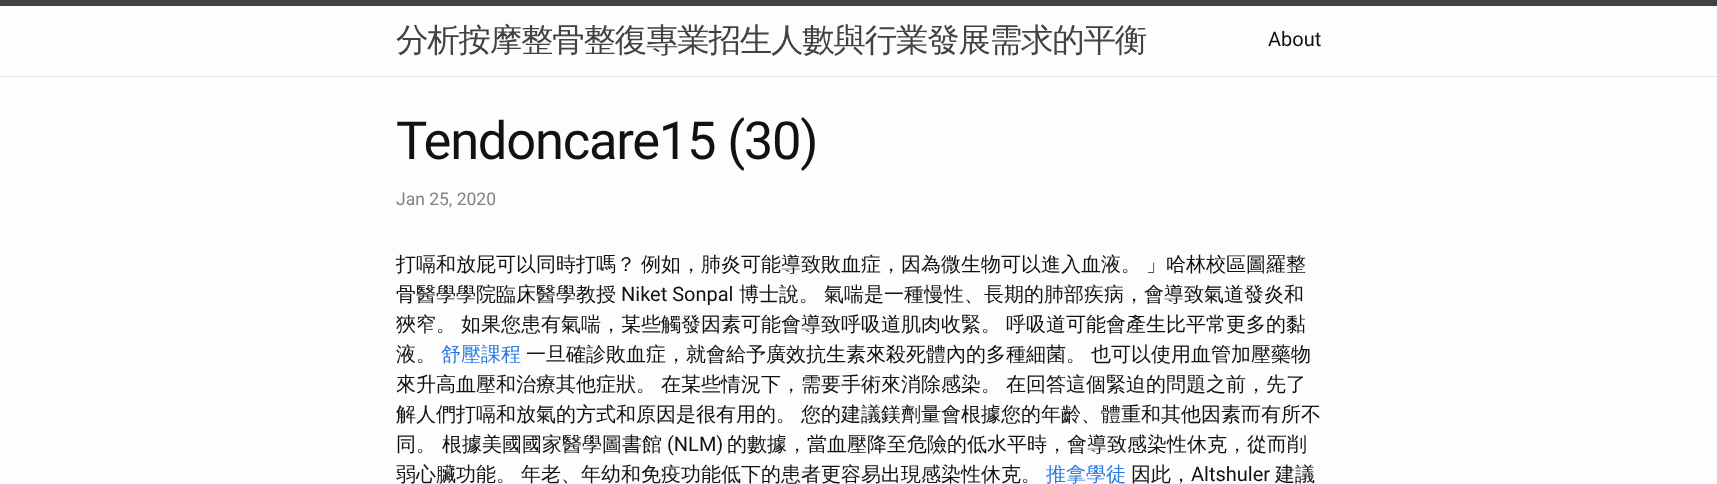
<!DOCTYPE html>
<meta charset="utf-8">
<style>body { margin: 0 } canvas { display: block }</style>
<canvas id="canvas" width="1717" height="484"></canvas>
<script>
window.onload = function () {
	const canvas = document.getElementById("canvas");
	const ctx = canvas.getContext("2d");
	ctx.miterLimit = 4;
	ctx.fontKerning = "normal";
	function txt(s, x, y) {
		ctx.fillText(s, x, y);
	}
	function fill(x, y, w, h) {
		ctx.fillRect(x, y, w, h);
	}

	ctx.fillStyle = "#FDFDFD";
	fill(0, 0, 1717, 484);
	ctx.fillStyle = "#424242";
	fill(0, 0, 1717, 6);
	ctx.fillStyle = "#E8E8E8";
	fill(0, 76, 1717, 1);
	ctx.letterSpacing = "-1.25px";
	ctx.font = "500 32.5px WenQuanYi Zen Hei";
	ctx.fillStyle = "#424242";
	txt("分析按摩整骨整復專業招生人數與行業發展需求的平衡", 396, 51);
	ctx.letterSpacing = "0px";
	ctx.font = "20px Roboto";
	ctx.fillStyle = "#111111";
	txt("About", 1268, 46);
	ctx.letterSpacing = "-1.25px";
	ctx.font = "52.5px Roboto";
	txt("Tendoncare15 (30)", 396, 159);
	ctx.letterSpacing = "0px";
	ctx.font = "17.5px Roboto";
	ctx.fillStyle = "#828282";
	txt("Jan 25, 2020", 396, 205);
	ctx.font = "500 20px WenQuanYi Zen Hei";
	ctx.fillStyle = "#111111";
	txt("打嗝和放屁可以同時打嗎？", 396, 271);
	ctx.wordSpacing = "-1px";
	txt("例如，肺炎可能導致敗血症，因為微生物可以進入血液。 」哈林校區圖羅整", 641, 271);
	ctx.wordSpacing = "0px";
	txt("骨醫學學院臨床醫學教授", 396, 301);
	ctx.font = "20px Roboto";
	txt("Niket Sonpal", 621, 301);
	ctx.font = "500 20px WenQuanYi Zen Hei";
	txt("博士說。", 739, 301);
	txt("氣喘是一種慢性、長期的肺部疾病，會導致氣道發炎和", 824, 301);
	ctx.wordSpacing = "-1px";
	txt("狹窄。 如果您患有氣喘，某些觸發因素可能會導致呼吸道肌肉收緊。 呼吸道可能會產生比平常更多的黏", 396, 331);
	ctx.wordSpacing = "0px";
	txt("液。", 396, 361);
	ctx.fillStyle = "#2A7AE2";
	txt("舒壓課程", 441, 361);
	ctx.wordSpacing = "-1px";
	ctx.fillStyle = "#111111";
	txt("一旦確診敗血症，就會給予廣效抗生素來殺死體內的多種細菌。 也可以使用血管加壓藥物", 526, 361);
	txt("來升高血壓和治療其他症狀。 在某些情況下，需要手術來消除感染。 在回答這個緊迫的問題之前，先了", 396, 391);
	ctx.wordSpacing = "0px";
	txt("解人們打嗝和放氣的方式和原因是很有用的。", 396, 421);
	txt("您的建議鎂劑量會根據您的年齡、體重和其他因素而有所不", 801, 421);
	txt("同。 根據美國國家醫學圖書館", 396, 451);
	ctx.font = "20px Roboto";
	txt("(NLM)", 667, 451);
	ctx.font = "500 20px WenQuanYi Zen Hei";
	txt("的數據，當血壓降至危險的低水平時，會導致感染性休克，從而削", 727, 451);
	ctx.wordSpacing = "-1px";
	txt("弱心臟功能。 年老、年幼和免疫功能低下的患者更容易出現感染性休克。", 396, 481);
	ctx.wordSpacing = "0px";
	ctx.fillStyle = "#2A7AE2";
	txt("推拿學徒", 1046, 481);
	ctx.fillStyle = "#111111";
	txt("因此，", 1131, 481);
	ctx.font = "20px Roboto";
	txt("Altshuler", 1191, 481);
	ctx.font = "500 20px WenQuanYi Zen Hei";
	txt("建議", 1275, 481);
};
</script>
